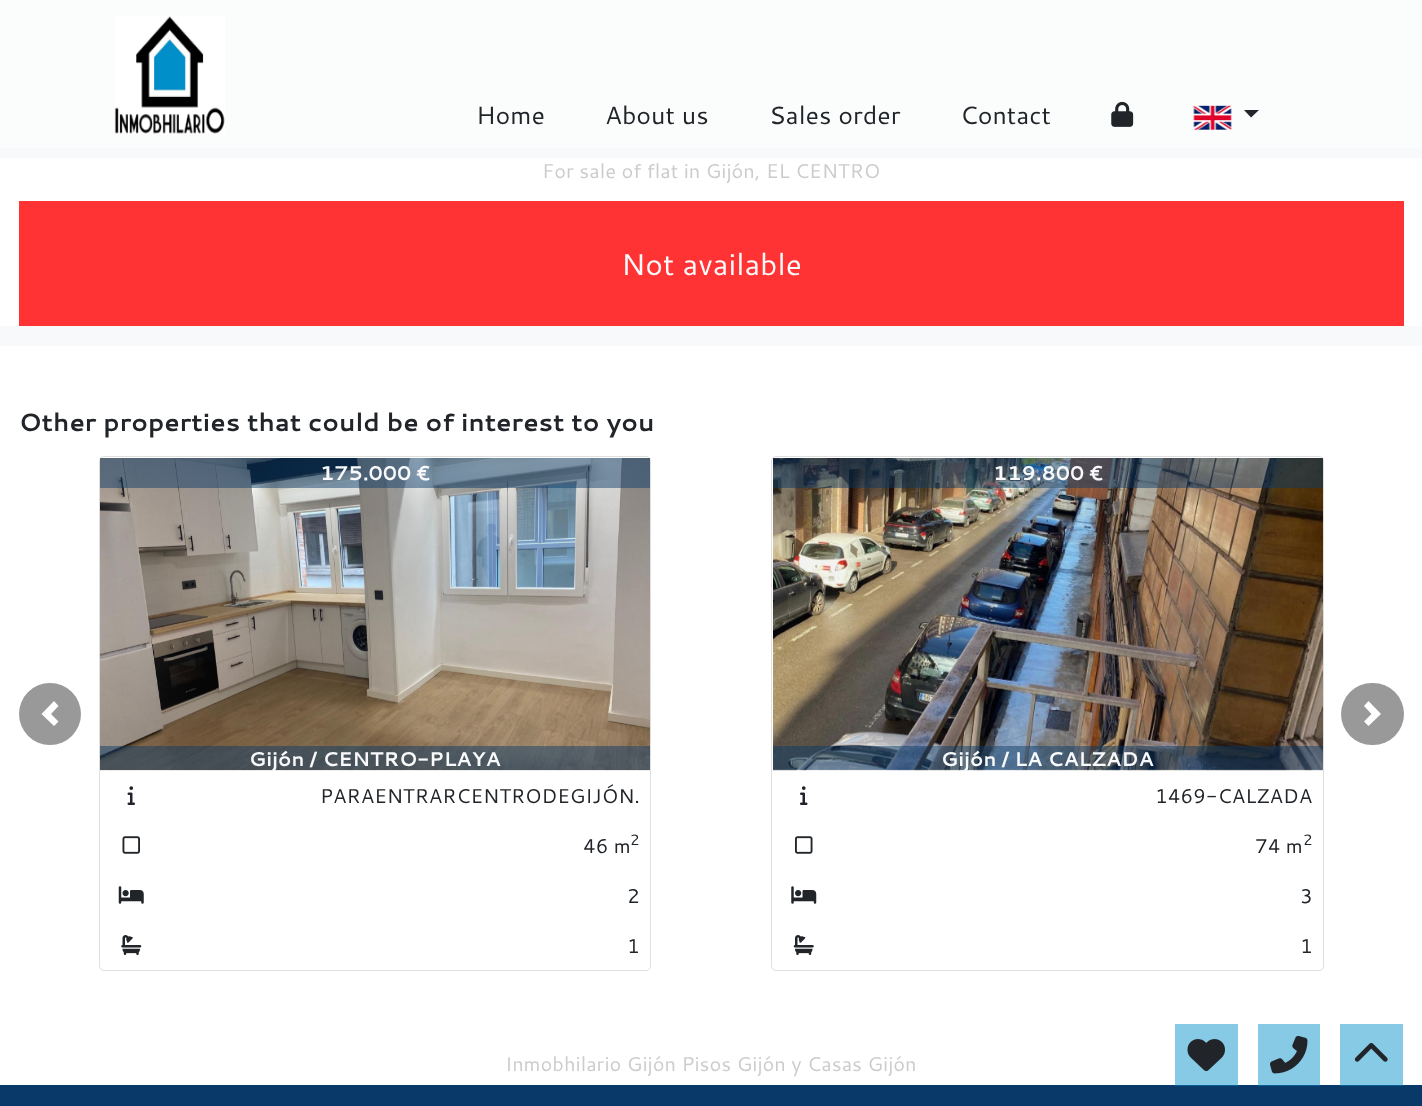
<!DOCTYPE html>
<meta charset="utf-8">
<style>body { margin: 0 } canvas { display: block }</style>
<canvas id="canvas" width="1422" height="1106"></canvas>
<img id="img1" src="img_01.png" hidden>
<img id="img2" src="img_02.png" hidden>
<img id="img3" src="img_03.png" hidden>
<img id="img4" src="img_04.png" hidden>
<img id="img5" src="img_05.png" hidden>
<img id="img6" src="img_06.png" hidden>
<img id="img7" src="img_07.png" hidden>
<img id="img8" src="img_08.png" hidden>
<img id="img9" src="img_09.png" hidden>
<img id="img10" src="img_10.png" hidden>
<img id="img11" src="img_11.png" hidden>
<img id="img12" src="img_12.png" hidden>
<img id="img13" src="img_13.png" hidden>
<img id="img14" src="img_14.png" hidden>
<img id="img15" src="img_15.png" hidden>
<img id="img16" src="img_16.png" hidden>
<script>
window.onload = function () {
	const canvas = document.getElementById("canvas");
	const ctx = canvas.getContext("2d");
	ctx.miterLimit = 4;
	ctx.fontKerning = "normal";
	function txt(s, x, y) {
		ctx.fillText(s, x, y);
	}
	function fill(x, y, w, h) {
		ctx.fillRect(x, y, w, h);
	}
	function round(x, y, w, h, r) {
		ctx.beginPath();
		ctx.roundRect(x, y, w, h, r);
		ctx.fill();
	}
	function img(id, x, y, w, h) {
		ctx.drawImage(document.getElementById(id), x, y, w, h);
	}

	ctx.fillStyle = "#FFFFFF";
	fill(0, 0, 1422, 1106);
	ctx.fillStyle = "#87CAE6";
	fill(1175, 1024, 63, 61);
	fill(1258, 1024, 62, 61);
	fill(1340, 1024, 63, 61);
	ctx.fillStyle = "#FBFCFC";
	fill(0, 0, 1422, 148);
	img("img1", 114, 16, 111, 118);
	img("img2", 1111, 101, 23, 26);
	img("img3", 1193, 105, 39, 25);
	ctx.fillStyle = "#212529";
	ctx.beginPath();
	ctx.moveTo(1244, 110);
	ctx.lineTo(1259, 110);
	ctx.lineTo(1251, 117.5);
	ctx.closePath();
	ctx.fill();
	ctx.fillStyle = "#F8F9FA";
	fill(0, 148, 1422, 198);
	ctx.fillStyle = "#FFFFFF";
	fill(0, 158, 1422, 168);
	ctx.fillStyle = "#FF3333";
	fill(19, 201, 1385, 125);
	ctx.fillStyle = "#999999";
	ctx.beginPath();
	ctx.arc(50, 714, 31, 0, Math.PI * 2);
	ctx.fill();
	ctx.fillStyle = "#FFFFFF";
	ctx.beginPath();
	ctx.moveTo(54, 701);
	ctx.lineTo(41.5, 714);
	ctx.lineTo(54, 726);
	ctx.lineTo(58.5, 721.5);
	ctx.lineTo(51, 714);
	ctx.lineTo(58.5, 706);
	ctx.closePath();
	ctx.fill();
	ctx.beginPath();
	ctx.roundRect(99.5, 456.5, 551, 514, 4.5);
	ctx.strokeStyle = "#DFDFDF";
	ctx.stroke();
	img("img4", 100, 458, 550, 313);
	ctx.fillStyle = "rgba(9, 57, 104, 0.47)";
	fill(100, 458, 550, 30);
	fill(100, 746, 550, 24);
	img("img5", 127, 786, 8, 19);
	img("img6", 122, 836, 18, 18);
	img("img7", 118, 886, 26, 18);
	img("img8", 121, 935, 21, 20);
	ctx.beginPath();
	ctx.roundRect(771.5, 456.5, 552, 514, 4.5);
	ctx.stroke();
	img("img9", 773, 458, 550, 313);
	fill(773, 458, 550, 30);
	fill(773, 746, 550, 24);
	img("img10", 800, 786, 8, 19);
	img("img11", 795, 836, 18, 18);
	img("img12", 791, 886, 26, 18);
	img("img13", 793, 935, 21, 20);
	ctx.fillStyle = "#999999";
	round(1341, 683, 63, 62, 31);
	ctx.fillStyle = "#FFFFFF";
	ctx.beginPath();
	ctx.moveTo(1368.5, 701);
	ctx.lineTo(1364, 706);
	ctx.lineTo(1371.5, 714);
	ctx.lineTo(1364, 721.5);
	ctx.lineTo(1368.5, 726);
	ctx.lineTo(1381, 714);
	ctx.closePath();
	ctx.fill();
	img("img14", 1187, 1039, 38, 33);
	img("img15", 1270, 1036, 38, 38);
	img("img16", 1354, 1043, 34, 19);
	ctx.fillStyle = "#093968";
	fill(0, 1085, 1422, 21);
	ctx.fillStyle = "#056196";
	fill(1175, 1085, 63, 1);
	fill(1258, 1085, 62, 1);
	fill(1340, 1085, 63, 1);
	ctx.font = "25px Cantarell";
	ctx.fillStyle = "#212529";
	txt("Home", 476, 124);
	txt("About us", 605, 124);
	txt("Sales order", 769, 124);
	txt("Contact", 960, 124);
	ctx.font = "20px Cantarell";
	ctx.fillStyle = "#CCCCCC";
	txt("For sale of flat in Gijón, EL CENTRO", 542, 178);
	ctx.font = "30px Cantarell";
	ctx.fillStyle = "#F8F9FA";
	txt("Not available", 621, 275);
	ctx.font = "bold 25px Cantarell";
	ctx.fillStyle = "#212529";
	txt("Other properties that could be of interest to you", 19, 431);
	ctx.font = "bold 20px Cantarell";
	ctx.fillStyle = "#F8F9FA";
	txt("175.000 €", 320, 480);
	txt("Gijón / CENTRO-PLAYA", 249, 766);
	ctx.font = "20px Cantarell";
	ctx.fillStyle = "#212529";
	txt("PARAENTRARCENTRODEGIJÓN.", 320, 803);
	txt("46 m", 583, 853);
	ctx.font = "15px Cantarell";
	txt("2", 630, 845);
	ctx.font = "20px Cantarell";
	txt("2", 627, 903);
	txt("1", 627, 953);
	ctx.font = "bold 20px Cantarell";
	ctx.fillStyle = "#F8F9FA";
	txt("119.800 €", 993, 480);
	txt("Gijón / LA CALZADA", 941, 766);
	ctx.font = "20px Cantarell";
	ctx.fillStyle = "#212529";
	txt("1469-CALZADA", 1155, 803);
	txt("74 m", 1255, 853);
	ctx.font = "15px Cantarell";
	txt("2", 1303, 845);
	ctx.font = "20px Cantarell";
	txt("3", 1300, 903);
	txt("1", 1300, 953);
	ctx.fillStyle = "#CCCCCC";
	txt("Inmobhilario Gijón Pisos Gijón y Casas Gijón", 505, 1071);
};
</script>
